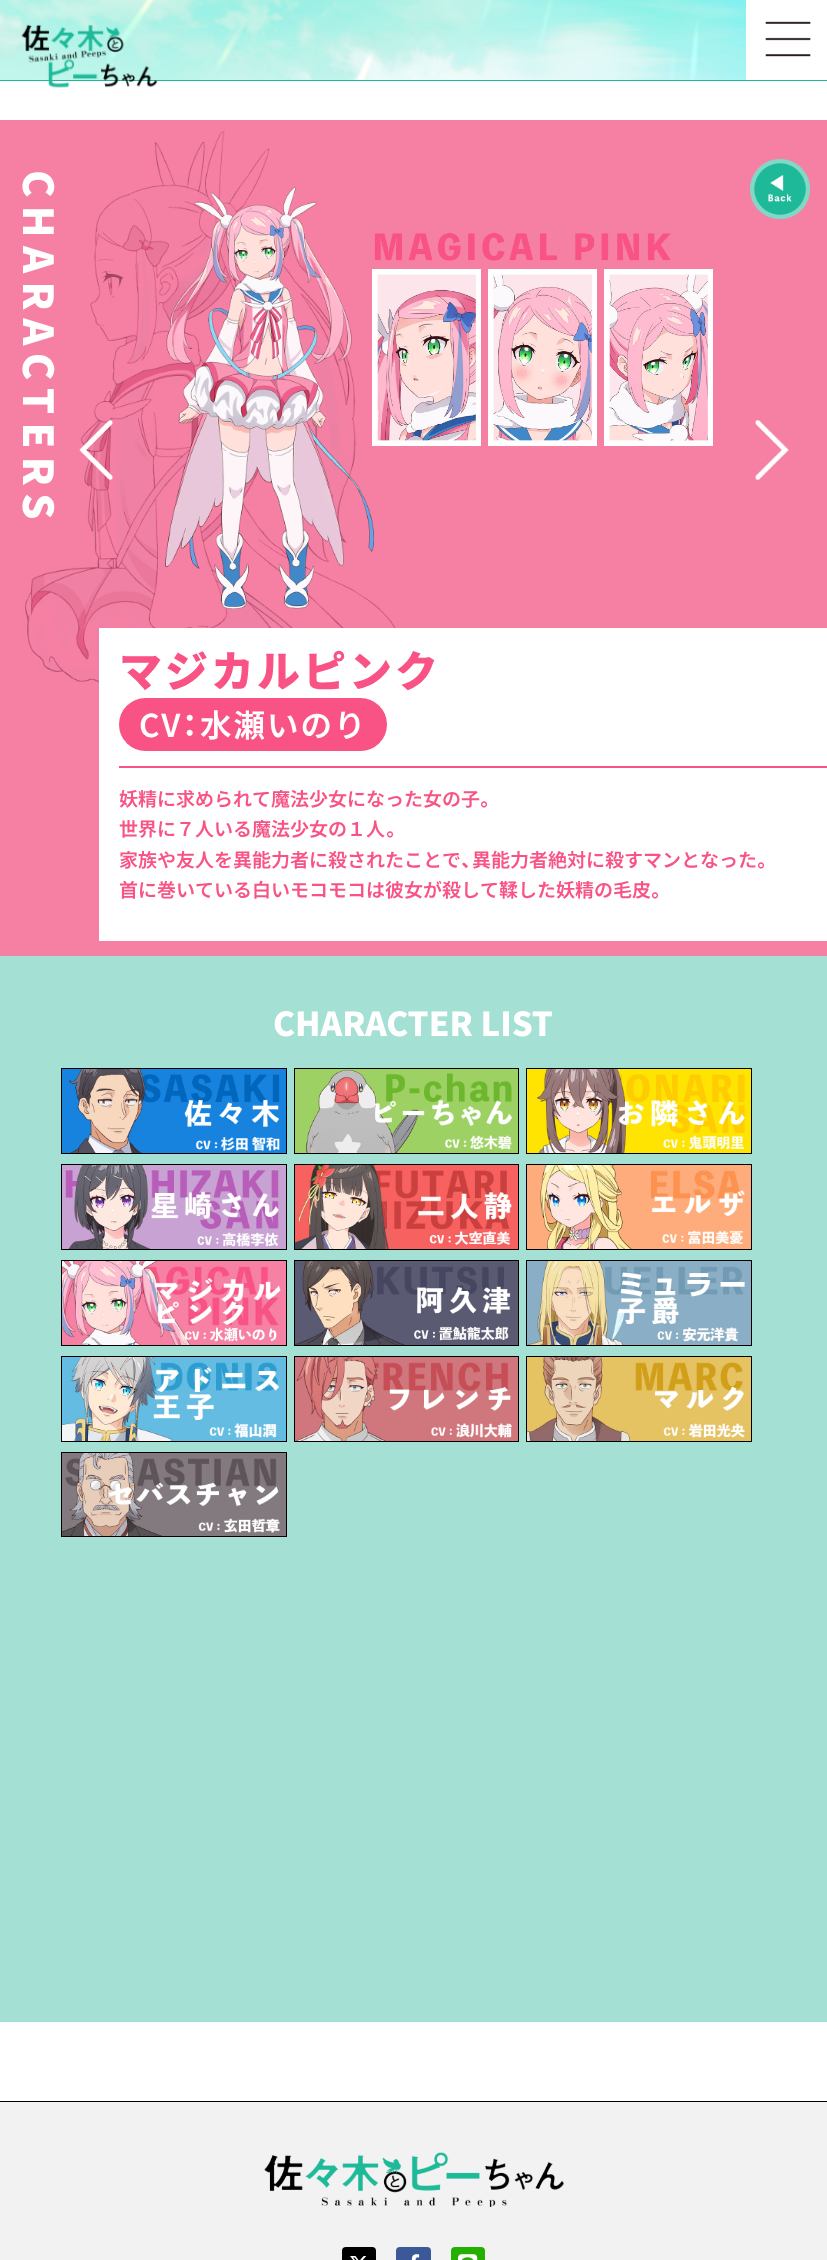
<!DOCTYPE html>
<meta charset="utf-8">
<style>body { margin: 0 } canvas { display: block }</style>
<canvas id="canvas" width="827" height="2260"></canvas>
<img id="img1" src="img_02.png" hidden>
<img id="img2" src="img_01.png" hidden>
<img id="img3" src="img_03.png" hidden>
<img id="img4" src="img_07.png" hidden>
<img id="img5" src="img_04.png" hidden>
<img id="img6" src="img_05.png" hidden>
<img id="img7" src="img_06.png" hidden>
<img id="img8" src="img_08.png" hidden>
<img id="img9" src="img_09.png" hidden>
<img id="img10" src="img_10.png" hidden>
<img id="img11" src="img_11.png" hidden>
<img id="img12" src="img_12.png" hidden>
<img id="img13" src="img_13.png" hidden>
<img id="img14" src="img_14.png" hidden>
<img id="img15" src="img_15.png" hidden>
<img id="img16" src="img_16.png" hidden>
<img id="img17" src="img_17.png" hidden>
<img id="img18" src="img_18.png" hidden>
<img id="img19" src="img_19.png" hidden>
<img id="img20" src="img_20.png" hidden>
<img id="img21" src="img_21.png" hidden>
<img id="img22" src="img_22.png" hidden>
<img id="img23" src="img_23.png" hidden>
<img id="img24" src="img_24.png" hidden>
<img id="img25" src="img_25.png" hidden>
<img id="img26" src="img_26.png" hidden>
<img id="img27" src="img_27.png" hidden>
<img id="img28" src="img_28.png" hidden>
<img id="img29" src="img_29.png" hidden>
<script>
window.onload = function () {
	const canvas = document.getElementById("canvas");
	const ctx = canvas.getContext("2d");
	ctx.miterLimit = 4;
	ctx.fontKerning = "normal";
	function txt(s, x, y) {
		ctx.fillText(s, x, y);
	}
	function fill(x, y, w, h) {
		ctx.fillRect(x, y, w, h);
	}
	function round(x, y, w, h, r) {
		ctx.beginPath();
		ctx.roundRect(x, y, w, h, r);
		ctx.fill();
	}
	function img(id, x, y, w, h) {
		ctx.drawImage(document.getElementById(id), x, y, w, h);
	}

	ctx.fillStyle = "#FFFFFF";
	fill(0, 0, 827, 2260);
	ctx.fillStyle = "#1EB999";
	fill(0, 80, 827, 1);
	img("img1", 0, 0, 746, 80);
	img("img2", 21, 24, 137, 64);
	img("img3", 765, 21, 46, 36);
	ctx.fillStyle = "#A5E0D4";
	fill(0, 956, 827, 1066);
	ctx.fillStyle = "#F680A4";
	fill(0, 120, 827, 836);
	img("img4", 25, 131, 377, 557);
	img("img5", 79, 420, 34, 60);
	img("img6", 755, 420, 34, 60);
	img("img7", 750, 159, 60, 60);
	img("img8", 165, 187, 209, 422);
	img("img9", 374, 233, 297, 28);
	img("img10", 372, 269, 109, 177);
	img("img11", 488, 269, 109, 177);
	img("img12", 604, 269, 109, 177);
	ctx.fillStyle = "#FFFFFF";
	fill(99, 628, 728, 313);
	ctx.fillStyle = "#F85384";
	round(119, 698, 268, 53, 26.5);
	fill(119, 766, 708, 2);
	ctx.strokeStyle = "#000000";
	ctx.strokeRect(61.5, 1068.5, 225, 85);
	img("img13", 62, 1069, 224, 84);
	ctx.strokeRect(294.5, 1068.5, 224, 85);
	img("img14", 295, 1069, 223, 84);
	ctx.strokeRect(526.5, 1068.5, 225, 85);
	img("img15", 527, 1069, 224, 84);
	ctx.strokeRect(61.5, 1164.5, 225, 85);
	img("img16", 62, 1165, 224, 84);
	ctx.strokeRect(294.5, 1164.5, 224, 85);
	img("img17", 295, 1165, 223, 84);
	ctx.strokeRect(526.5, 1164.5, 225, 85);
	img("img18", 527, 1165, 224, 84);
	ctx.strokeRect(61.5, 1260.5, 225, 85);
	img("img19", 62, 1261, 224, 84);
	ctx.strokeRect(294.5, 1260.5, 224, 85);
	img("img20", 295, 1261, 223, 84);
	ctx.strokeRect(526.5, 1260.5, 225, 85);
	img("img21", 527, 1261, 224, 84);
	ctx.strokeRect(61.5, 1356.5, 225, 85);
	img("img22", 62, 1357, 224, 84);
	ctx.strokeRect(294.5, 1356.5, 224, 85);
	img("img23", 295, 1357, 223, 84);
	ctx.strokeRect(526.5, 1356.5, 225, 85);
	img("img24", 527, 1357, 224, 84);
	ctx.strokeRect(61.5, 1452.5, 225, 84);
	img("img25", 62, 1453, 224, 83);
	ctx.fillStyle = "#F2F2F2";
	fill(0, 2102, 827, 158);
	ctx.fillStyle = "#000000";
	fill(0, 2101, 827, 1);
	img("img26", 264, 2152, 300, 55);
	round(342, 2247, 34, 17, 4);
	img("img27", 350, 2256, 17, 4);
	ctx.fillStyle = "#3B5998";
	round(396, 2247, 35, 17, 4);
	img("img28", 411, 2254, 9, 6);
	ctx.fillStyle = "#25AF00";
	round(451, 2247, 34, 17, 4);
	img("img29", 458, 2254, 20, 6);
	ctx.letterSpacing = "8.25px";
	ctx.font = "900 41.25px Noto Sans JP";
	ctx.fillStyle = "#FFFFFF";
	ctx.save();
	ctx.translate(23, 170);
	ctx.rotate(90 * Math.PI / 180);
	ctx.fillText("CHARACTERS", 0, 0);
	ctx.restore();
	ctx.letterSpacing = "3px";
	ctx.font = "900 43px Noto Sans JP";
	ctx.fillStyle = "#F85384";
	txt("マジカルピンク", 119, 687);
	ctx.letterSpacing = "2px";
	ctx.font = "600 31.5px Noto Sans JP";
	ctx.fillStyle = "#FFFFFF";
	txt("CV", 139, 737);
	ctx.font = "bold 31.5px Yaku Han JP";
	txt("：", 182, 737);
	ctx.font = "600 31.5px Noto Sans JP";
	txt("水瀬いのり", 200, 737);
	ctx.letterSpacing = "0px";
	ctx.font = "600 19px Noto Sans JP";
	ctx.fillStyle = "#F85384";
	txt("妖精に求められて魔法少女になった女の子", 119, 806);
	ctx.font = "bold 19px Yaku Han JP";
	txt("。", 480, 806);
	ctx.font = "600 19px Noto Sans JP";
	txt("世界に７人いる魔法少女の１人", 119, 836);
	ctx.font = "bold 19px Yaku Han JP";
	txt("。", 386, 836);
	ctx.font = "600 19px Noto Sans JP";
	txt("家族や友人を異能力者に殺されたことで", 119, 867);
	ctx.font = "bold 19px Yaku Han JP";
	txt("、", 461, 867);
	ctx.font = "600 19px Noto Sans JP";
	txt("異能力者絶対に殺すマンとなった", 472, 867);
	ctx.font = "bold 19px Yaku Han JP";
	txt("。", 757, 867);
	ctx.font = "600 19px Noto Sans JP";
	txt("首に巻いている白いモコモコは彼女が殺して鞣した妖精の毛皮", 119, 897);
	ctx.font = "bold 19px Yaku Han JP";
	txt("。", 651, 897);
	ctx.font = "900 33px Noto Sans JP";
	ctx.fillStyle = "#FFFFFF";
	txt("CHARACTER LIST", 273, 1036);
};
</script>
